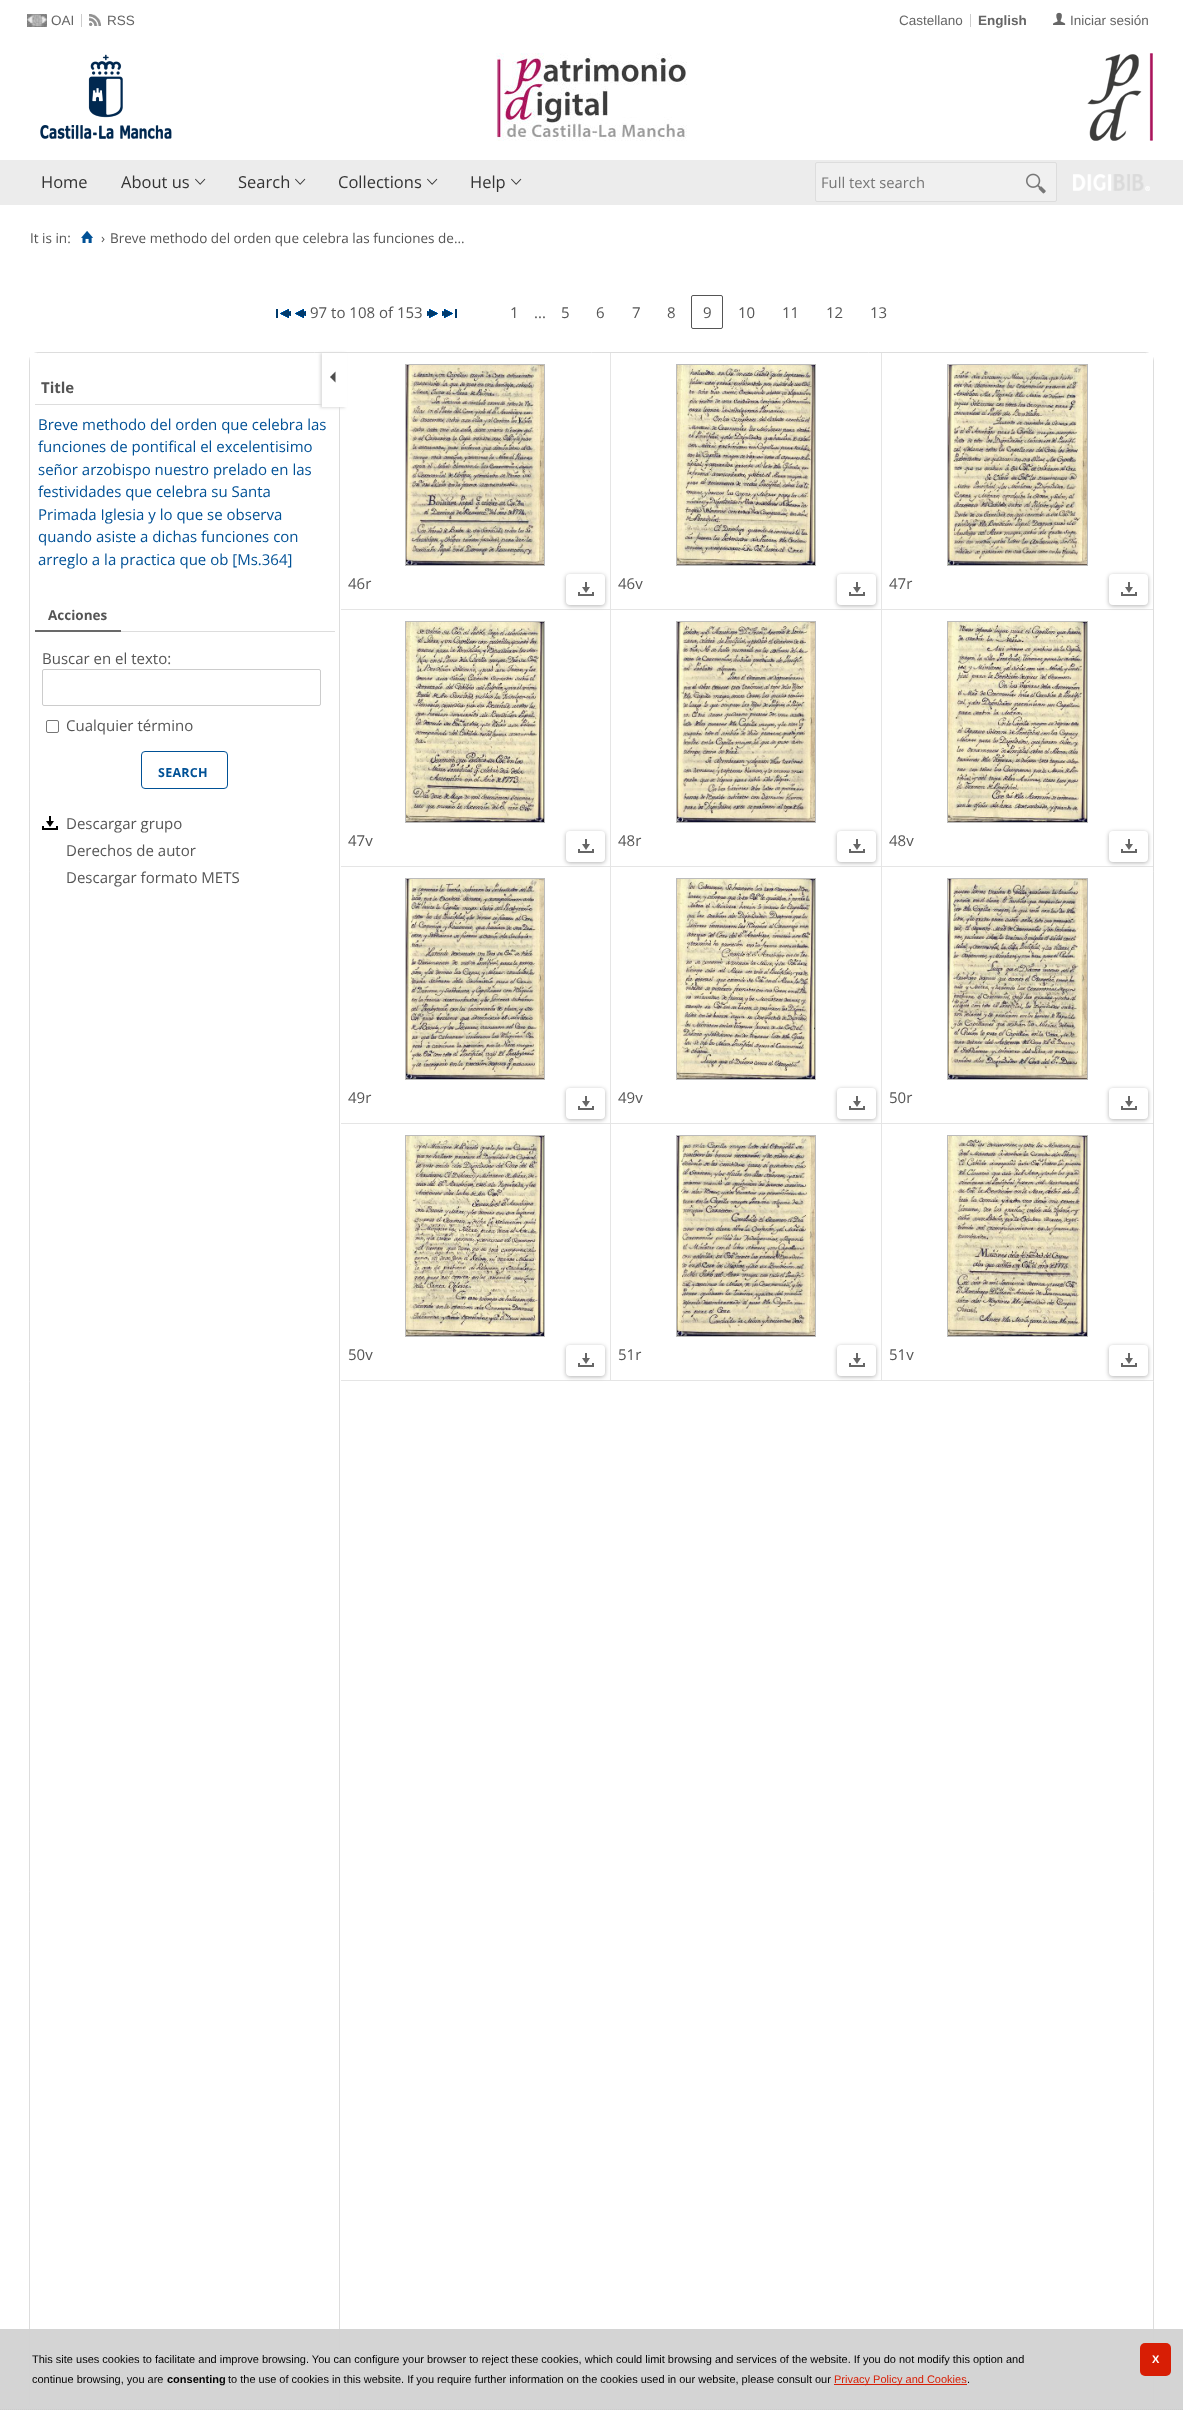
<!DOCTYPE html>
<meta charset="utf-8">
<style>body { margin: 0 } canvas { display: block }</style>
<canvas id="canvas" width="1183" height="2410"></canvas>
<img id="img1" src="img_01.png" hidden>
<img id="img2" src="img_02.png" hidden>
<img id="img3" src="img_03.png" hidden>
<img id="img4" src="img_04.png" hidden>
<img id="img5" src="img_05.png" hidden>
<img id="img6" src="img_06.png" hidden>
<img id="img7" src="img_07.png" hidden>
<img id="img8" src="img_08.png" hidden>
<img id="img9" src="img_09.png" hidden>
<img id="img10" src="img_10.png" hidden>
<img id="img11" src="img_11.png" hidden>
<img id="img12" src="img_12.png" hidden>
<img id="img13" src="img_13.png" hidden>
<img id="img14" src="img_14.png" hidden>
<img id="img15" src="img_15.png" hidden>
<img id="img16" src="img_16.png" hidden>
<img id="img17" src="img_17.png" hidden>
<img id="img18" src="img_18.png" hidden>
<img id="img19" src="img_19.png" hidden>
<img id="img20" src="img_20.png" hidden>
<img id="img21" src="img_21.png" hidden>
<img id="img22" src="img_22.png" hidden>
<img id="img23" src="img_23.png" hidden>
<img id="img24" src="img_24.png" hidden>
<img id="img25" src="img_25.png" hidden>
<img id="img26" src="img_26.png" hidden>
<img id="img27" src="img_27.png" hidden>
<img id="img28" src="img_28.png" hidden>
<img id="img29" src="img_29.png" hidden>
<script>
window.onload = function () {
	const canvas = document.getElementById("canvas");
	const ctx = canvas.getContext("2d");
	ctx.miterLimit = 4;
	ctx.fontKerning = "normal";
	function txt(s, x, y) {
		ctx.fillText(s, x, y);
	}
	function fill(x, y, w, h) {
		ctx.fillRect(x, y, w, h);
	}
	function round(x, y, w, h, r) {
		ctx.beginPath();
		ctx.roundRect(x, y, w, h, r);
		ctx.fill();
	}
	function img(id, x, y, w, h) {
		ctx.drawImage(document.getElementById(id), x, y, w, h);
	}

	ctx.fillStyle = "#FFFFFF";
	fill(0, 0, 1183, 2410);
	img("img1", 27, 14, 20, 13);
	ctx.fillStyle = "#CCCCCC";
	fill(81, 14, 1, 13);
	img("img2", 89, 14, 12, 12);
	fill(970, 14, 1, 13);
	img("img3", 1053, 12, 13, 13);
	img("img4", 496, 53, 191, 88);
	img("img5", 40, 54, 132, 85);
	img("img6", 1087, 53, 66, 88);
	ctx.fillStyle = "#ECECEC";
	fill(0, 160, 1183, 45);
	img("img7", 195, 178, 11, 7);
	img("img7", 295, 178, 11, 7);
	img("img7", 427, 178, 11, 7);
	img("img7", 511, 178, 11, 7);
	ctx.fillStyle = "#F0F0F0";
	ctx.beginPath();
	ctx.roundRect(815.5, 162.5, 241, 39, 1.5);
	ctx.fill();
	ctx.strokeStyle = "#DDDDDD";
	ctx.stroke();
	img("img8", 1026, 173, 20, 21);
	img("img9", 1073, 174, 77, 17);
	img("img10", 81, 231, 12, 12);
	img("img11", 276, 309, 15, 9);
	img("img12", 295, 309, 11, 9);
	img("img13", 427, 309, 11, 9);
	img("img14", 442, 309, 15, 9);
	ctx.beginPath();
	ctx.roundRect(691.5, 295.5, 31, 33, 1.5);
	ctx.strokeStyle = "#555555";
	ctx.stroke();
	ctx.beginPath();
	ctx.roundRect(29.5, 352.5, 1124, 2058, 8.5);
	ctx.strokeStyle = "#DDDDDD";
	ctx.stroke();
	ctx.fillStyle = "#FFFFFF";
	fill(30, 353, 7, 2057);
	ctx.fillStyle = "#DDDDDD";
	fill(339, 407, 1, 2003);
	fill(35, 404, 287, 1);
	fill(121, 631, 214, 1);
	ctx.fillStyle = "#696969";
	fill(35, 630, 86, 2);
	ctx.beginPath();
	ctx.roundRect(42.5, 669.5, 278, 36, 1.5);
	ctx.strokeStyle = "#CCCCCC";
	ctx.stroke();
	ctx.beginPath();
	ctx.roundRect(46.5, 720.5, 12, 12, 1.5);
	ctx.strokeStyle = "#767676";
	ctx.stroke();
	ctx.beginPath();
	ctx.roundRect(141.5, 751.5, 86, 37, 3.5);
	ctx.strokeStyle = "#005196";
	ctx.stroke();
	img("img15", 42, 816, 16, 14);
	ctx.fillStyle = "#E5E5E5";
	fill(610, 353, 1, 257);
	fill(340, 609, 271, 1);
	ctx.fillStyle = "rgba(0, 0, 0, 0.3)";
	ctx.filter = "blur(2px)";
	ctx.beginPath();
	ctx.roundRect(566, 575, 39, 31, 4);
	ctx.fill();
	ctx.filter = "none";
	ctx.fillStyle = "#E5E5E5";
	fill(610, 610, 1, 257);
	fill(340, 866, 271, 1);
	ctx.fillStyle = "rgba(0, 0, 0, 0.3)";
	ctx.filter = "blur(2px)";
	ctx.beginPath();
	ctx.roundRect(566, 832, 39, 31, 4);
	ctx.fill();
	ctx.filter = "none";
	ctx.fillStyle = "#E5E5E5";
	fill(610, 867, 1, 257);
	fill(340, 1123, 271, 1);
	ctx.fillStyle = "rgba(0, 0, 0, 0.3)";
	ctx.filter = "blur(2px)";
	ctx.beginPath();
	ctx.roundRect(566, 1089, 39, 31, 4);
	ctx.fill();
	ctx.filter = "none";
	ctx.fillStyle = "#E5E5E5";
	fill(610, 1124, 1, 257);
	fill(340, 1380, 271, 1);
	ctx.fillStyle = "#FFFFFF";
	fill(340, 609, 1, 772);
	ctx.fillStyle = "#DDDDDD";
	ctx.filter = "blur(1.5px)";
	ctx.beginPath();
	ctx.rect(320, 353, 25, 55);
	ctx.fill();
	ctx.filter = "none";
	ctx.fillStyle = "#FFFFFF";
	fill(322, 353, 25, 54);
	img("img16", 330, 371, 6, 12);
	fill(1146, 353, 7, 2057);
	ctx.strokeStyle = "#BBBBBB";
	ctx.strokeRect(405.5, 364.5, 139, 201);
	img("img17", 406, 365, 138, 200);
	round(566, 574, 39, 31, 4);
	img("img18", 578, 582, 16, 14);
	ctx.fillStyle = "#E5E5E5";
	fill(881, 353, 1, 257);
	fill(611, 609, 271, 1);
	ctx.strokeRect(676.5, 364.5, 139, 201);
	img("img19", 677, 365, 138, 200);
	ctx.fillStyle = "rgba(0, 0, 0, 0.3)";
	ctx.filter = "blur(2px)";
	ctx.beginPath();
	ctx.roundRect(837, 575, 39, 31, 4);
	ctx.fill();
	ctx.filter = "none";
	ctx.fillStyle = "#FFFFFF";
	round(837, 574, 39, 31, 4);
	img("img18", 849, 582, 16, 14);
	ctx.fillStyle = "#E5E5E5";
	fill(882, 609, 271, 1);
	ctx.strokeRect(947.5, 364.5, 140, 201);
	img("img20", 948, 365, 139, 200);
	ctx.fillStyle = "rgba(0, 0, 0, 0.3)";
	ctx.filter = "blur(2px)";
	ctx.beginPath();
	ctx.roundRect(1109, 575, 39, 31, 4);
	ctx.fill();
	ctx.filter = "none";
	ctx.fillStyle = "#FFFFFF";
	round(1109, 574, 39, 31, 4);
	img("img18", 1121, 582, 16, 14);
	ctx.strokeRect(405.5, 621.5, 139, 201);
	img("img21", 406, 622, 138, 200);
	round(566, 831, 39, 31, 4);
	img("img18", 578, 839, 16, 14);
	ctx.fillStyle = "#E5E5E5";
	fill(881, 610, 1, 257);
	fill(611, 866, 271, 1);
	ctx.strokeRect(676.5, 621.5, 139, 201);
	img("img22", 677, 622, 138, 200);
	ctx.fillStyle = "rgba(0, 0, 0, 0.3)";
	ctx.filter = "blur(2px)";
	ctx.beginPath();
	ctx.roundRect(837, 832, 39, 31, 4);
	ctx.fill();
	ctx.filter = "none";
	ctx.fillStyle = "#FFFFFF";
	round(837, 831, 39, 31, 4);
	img("img18", 849, 839, 16, 14);
	ctx.fillStyle = "#E5E5E5";
	fill(882, 866, 271, 1);
	ctx.strokeRect(947.5, 621.5, 140, 201);
	img("img23", 948, 622, 139, 200);
	ctx.fillStyle = "rgba(0, 0, 0, 0.3)";
	ctx.filter = "blur(2px)";
	ctx.beginPath();
	ctx.roundRect(1109, 832, 39, 31, 4);
	ctx.fill();
	ctx.filter = "none";
	ctx.fillStyle = "#FFFFFF";
	round(1109, 831, 39, 31, 4);
	img("img18", 1121, 839, 16, 14);
	ctx.strokeRect(405.5, 878.5, 139, 201);
	img("img24", 406, 879, 138, 200);
	round(566, 1088, 39, 31, 4);
	img("img18", 578, 1096, 16, 14);
	ctx.fillStyle = "#E5E5E5";
	fill(881, 867, 1, 257);
	fill(611, 1123, 271, 1);
	ctx.strokeRect(676.5, 878.5, 139, 201);
	img("img25", 677, 879, 138, 200);
	ctx.fillStyle = "rgba(0, 0, 0, 0.3)";
	ctx.filter = "blur(2px)";
	ctx.beginPath();
	ctx.roundRect(837, 1089, 39, 31, 4);
	ctx.fill();
	ctx.filter = "none";
	ctx.fillStyle = "#FFFFFF";
	round(837, 1088, 39, 31, 4);
	img("img18", 849, 1096, 16, 14);
	ctx.fillStyle = "#E5E5E5";
	fill(882, 1123, 271, 1);
	ctx.strokeRect(947.5, 878.5, 140, 201);
	img("img26", 948, 879, 139, 200);
	ctx.fillStyle = "rgba(0, 0, 0, 0.3)";
	ctx.filter = "blur(2px)";
	ctx.beginPath();
	ctx.roundRect(1109, 1089, 39, 31, 4);
	ctx.fill();
	ctx.filter = "none";
	ctx.fillStyle = "#FFFFFF";
	round(1109, 1088, 39, 31, 4);
	img("img18", 1121, 1096, 16, 14);
	ctx.strokeRect(405.5, 1135.5, 139, 201);
	img("img27", 406, 1136, 138, 200);
	ctx.fillStyle = "rgba(0, 0, 0, 0.3)";
	ctx.filter = "blur(2px)";
	ctx.beginPath();
	ctx.roundRect(566, 1346, 39, 31, 4);
	ctx.fill();
	ctx.filter = "none";
	ctx.fillStyle = "#FFFFFF";
	round(566, 1345, 39, 31, 4);
	img("img18", 578, 1353, 16, 14);
	ctx.fillStyle = "#E5E5E5";
	fill(881, 1124, 1, 257);
	fill(611, 1380, 271, 1);
	ctx.strokeRect(676.5, 1135.5, 139, 201);
	img("img28", 677, 1136, 138, 200);
	ctx.fillStyle = "rgba(0, 0, 0, 0.3)";
	ctx.filter = "blur(2px)";
	ctx.beginPath();
	ctx.roundRect(837, 1346, 39, 31, 4);
	ctx.fill();
	ctx.filter = "none";
	ctx.fillStyle = "#FFFFFF";
	round(837, 1345, 39, 31, 4);
	img("img18", 849, 1353, 16, 14);
	ctx.fillStyle = "#E5E5E5";
	fill(882, 1380, 271, 1);
	ctx.strokeRect(947.5, 1135.5, 140, 201);
	img("img29", 948, 1136, 139, 200);
	ctx.fillStyle = "rgba(0, 0, 0, 0.3)";
	ctx.filter = "blur(2px)";
	ctx.beginPath();
	ctx.roundRect(1109, 1346, 39, 31, 4);
	ctx.fill();
	ctx.filter = "none";
	ctx.fillStyle = "#FFFFFF";
	round(1109, 1345, 39, 31, 4);
	img("img18", 1121, 1353, 16, 14);
	ctx.fillStyle = "rgba(210, 210, 210, 0.95)";
	fill(0, 2329, 1183, 81);
	ctx.beginPath();
	ctx.moveTo(0, 2409.5);
	ctx.lineTo(1183, 2409.5);
	ctx.strokeStyle = "#CCCCCC";
	ctx.setLineDash([1, 1]);
	ctx.stroke();
	ctx.fillStyle = "#D81E05";
	fill(834, 2384, 133, 1);
	round(1140, 2343, 31, 33, 5);
	ctx.font = "13.5px Liberation Sans";
	ctx.fillStyle = "#666666";
	txt("OAI", 51, 25);
	txt("RSS", 107, 25);
	txt("Castellano", 899, 25);
	ctx.font = "bold 13.5px Liberation Sans";
	txt("English", 978, 25);
	ctx.font = "13.5px Liberation Sans";
	txt("Iniciar sesión", 1070, 25);
	ctx.font = "16.5px Open Sans";
	ctx.fillStyle = "#333333";
	txt("Home", 41, 188);
	txt("About us", 121, 188);
	txt("Search", 238, 188);
	txt("Collections", 338, 188);
	txt("Help", 470, 188);
	ctx.font = "14.75px Open Sans";
	ctx.fillStyle = "#757575";
	txt("Full text search", 821, 188);
	ctx.font = "13.5px Open Sans";
	ctx.fillStyle = "#555555";
	txt("It is in:", 30, 243);
	txt("›", 101, 243);
	txt("Breve methodo del orden que celebra las funciones de...", 110, 243);
	ctx.font = "15px Open Sans";
	txt("97 to 108 of 153", 310, 318);
	txt("1", 510, 318);
	txt("...", 534, 318);
	txt("5", 561, 318);
	txt("6", 596, 318);
	txt("7", 632, 318);
	txt("8", 667, 318);
	txt("9", 703, 318);
	txt("10", 738, 318);
	txt("11", 782, 318);
	txt("12", 826, 318);
	txt("13", 870, 318);
	ctx.font = "bold 15px Open Sans";
	txt("Title", 41, 393);
	ctx.font = "15px Open Sans";
	ctx.fillStyle = "#005196";
	txt("Breve methodo del orden que celebra las", 38, 430);
	txt("funciones de pontifical el excelentisimo", 38, 452);
	txt("señor arzobispo nuestro prelado en las", 38, 475);
	txt("festividades que celebra su Santa", 38, 497);
	txt("Primada Iglesia y lo que se observa", 38, 520);
	txt("quando asiste a dichas funciones con", 38, 542);
	txt("arreglo a la practica que ob [Ms.364]", 38, 565);
	ctx.font = "bold 13.5px Open Sans";
	ctx.fillStyle = "#555555";
	txt("Acciones", 48, 620);
	ctx.font = "15px Open Sans";
	txt("Buscar en el texto:", 42, 664);
	txt("Cualquier término", 66, 731);
	ctx.letterSpacing = "0.25px";
	ctx.font = "bold 12.5px Open Sans";
	ctx.fillStyle = "#005196";
	txt("SEARCH", 158, 777);
	ctx.letterSpacing = "0px";
	ctx.font = "15px Open Sans";
	ctx.fillStyle = "#555555";
	txt("Descargar grupo", 66, 829);
	txt("Derechos de autor", 66, 856);
	txt("Descargar formato METS", 66, 883);
	txt("46r", 348, 589);
	txt("46v", 618, 589);
	txt("47r", 889, 589);
	txt("47v", 348, 846);
	txt("48r", 618, 846);
	txt("48v", 889, 846);
	txt("49r", 348, 1103);
	txt("49v", 618, 1103);
	txt("50r", 889, 1103);
	txt("50v", 348, 1360);
	txt("51r", 618, 1360);
	txt("51v", 889, 1360);
	ctx.font = "11px Liberation Sans";
	ctx.fillStyle = "#000000";
	txt("This site uses cookies to facilitate and improve browsing. You can configure your browser to reject these cookies, which could limit browsing and services of the website. If you do not modify this option and", 32, 2363);
	txt("continue browsing, you are", 32, 2383);
	ctx.font = "bold 11px Liberation Sans";
	txt("consenting", 167, 2383);
	ctx.font = "11px Liberation Sans";
	txt("to the use of cookies in this website. If you require further information on the cookies used in our website, please consult our", 228, 2383);
	ctx.fillStyle = "#D81E05";
	txt("Privacy Policy and Cookies", 834, 2383);
	ctx.fillStyle = "#000000";
	txt(".", 967, 2383);
	ctx.letterSpacing = "-1px";
	ctx.font = "bold 11px Liberation Sans";
	ctx.fillStyle = "#FFFFFF";
	txt("X", 1152, 2363);
};
</script>
